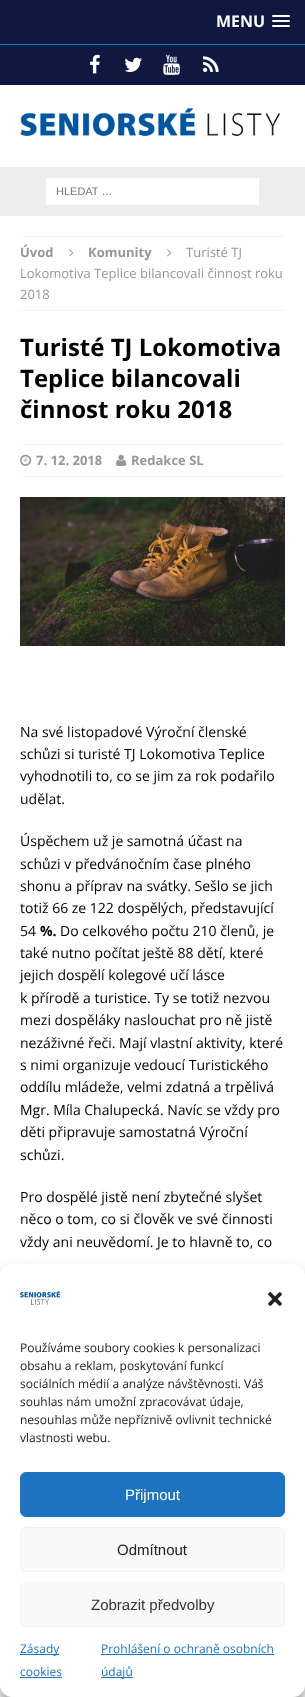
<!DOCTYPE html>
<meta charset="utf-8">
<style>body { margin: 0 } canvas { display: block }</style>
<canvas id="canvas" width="305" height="1697"></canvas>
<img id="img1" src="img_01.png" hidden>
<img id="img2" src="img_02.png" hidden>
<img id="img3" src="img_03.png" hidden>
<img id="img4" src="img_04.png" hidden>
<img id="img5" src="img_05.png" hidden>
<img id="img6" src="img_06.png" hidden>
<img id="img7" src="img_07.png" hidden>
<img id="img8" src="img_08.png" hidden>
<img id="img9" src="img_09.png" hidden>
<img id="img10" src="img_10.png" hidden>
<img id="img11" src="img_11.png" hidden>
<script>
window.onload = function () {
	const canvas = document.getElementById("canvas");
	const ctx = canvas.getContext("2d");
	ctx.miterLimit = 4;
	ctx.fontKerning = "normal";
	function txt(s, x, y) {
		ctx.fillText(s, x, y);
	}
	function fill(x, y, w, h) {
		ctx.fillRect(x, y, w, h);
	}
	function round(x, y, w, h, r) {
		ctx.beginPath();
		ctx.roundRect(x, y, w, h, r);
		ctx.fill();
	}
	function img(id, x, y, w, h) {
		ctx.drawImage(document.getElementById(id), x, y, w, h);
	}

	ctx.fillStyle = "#11183F";
	fill(0, 0, 305, 1697);
	ctx.fillStyle = "#1E73BE";
	fill(0, 44, 305, 1);
	ctx.fillStyle = "#FFFFFF";
	round(272, 15, 18, 2, 1);
	round(272, 20, 18, 2, 1);
	round(272, 25, 18, 2, 1);
	img("img1", 90, 54, 10, 20);
	img("img2", 124, 57, 18, 15);
	img("img3", 163, 54, 17, 21);
	img("img4", 203, 56, 16, 16);
	fill(0, 85, 305, 82);
	img("img5", 20, 108, 260, 28);
	ctx.fillStyle = "#EDEDED";
	fill(0, 167, 305, 49);
	ctx.fillStyle = "#FFFFFF";
	fill(46, 178, 213, 27);
	fill(0, 216, 305, 1481);
	ctx.beginPath();
	ctx.moveTo(20, 236.5);
	ctx.lineTo(285, 236.5);
	ctx.strokeStyle = "#EBEBEB";
	ctx.setLineDash([1, 1]);
	ctx.stroke();
	ctx.beginPath();
	ctx.moveTo(20, 310.5);
	ctx.lineTo(285, 310.5);
	ctx.stroke();
	img("img6", 69, 249, 5, 8);
	img("img6", 167, 249, 5, 8);
	ctx.beginPath();
	ctx.moveTo(20, 444.5);
	ctx.lineTo(285, 444.5);
	ctx.stroke();
	ctx.beginPath();
	ctx.moveTo(20, 476.5);
	ctx.lineTo(285, 476.5);
	ctx.stroke();
	img("img7", 20, 454, 12, 12);
	img("img8", 116, 454, 11, 12);
	img("img9", 20, 497, 265, 149);
	ctx.fillStyle = "rgba(0, 0, 0, 0.23)";
	ctx.filter = "blur(3px)";
	ctx.beginPath();
	ctx.roundRect(0, 1270, 305, 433, 12);
	ctx.fill();
	ctx.filter = "none";
	ctx.fillStyle = "rgba(0, 0, 0, 0.19)";
	ctx.filter = "blur(10px)";
	ctx.beginPath();
	ctx.roundRect(0, 1274, 305, 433, 12);
	ctx.fill();
	ctx.filter = "none";
	ctx.fillStyle = "#FFFFFF";
	round(0, 1264, 305, 433, 12);
	img("img10", 20, 1291, 40, 15);
	img("img11", 268, 1292, 14, 14);
	ctx.fillStyle = "#1E73BE";
	ctx.beginPath();
	ctx.roundRect(20.5, 1472.5, 264, 44, 5.5);
	ctx.fill();
	ctx.strokeStyle = "#1E73BE";
	ctx.setLineDash([]);
	ctx.stroke();
	ctx.fillStyle = "#F9F9F9";
	ctx.beginPath();
	ctx.roundRect(20.5, 1527.5, 264, 44, 5.5);
	ctx.fill();
	ctx.strokeStyle = "#F2F2F2";
	ctx.stroke();
	ctx.beginPath();
	ctx.roundRect(20.5, 1582.5, 264, 44, 5.5);
	ctx.fill();
	ctx.stroke();
	ctx.fillStyle = "#1E73BE";
	fill(20, 1654, 39, 1);
	fill(20, 1677, 42, 1);
	fill(101, 1654, 173, 1);
	fill(101, 1677, 32, 1);
	ctx.font = "bold 16px Open Sans";
	ctx.fillStyle = "#FFFFFF";
	txt("MENU", 216, 27);
	ctx.font = "11px Liberation Sans";
	ctx.fillStyle = "#757575";
	txt("HLEDAT …", 56, 195);
	ctx.font = "bold 13px Open Sans";
	ctx.fillStyle = "#979797";
	txt("Úvod", 20, 257);
	txt("Komunity", 88, 257);
	ctx.font = "13px Open Sans";
	txt("Turisté TJ", 186, 257);
	txt("Lokomotiva Teplice bilancovali činnost roku", 20, 278);
	txt("2018", 20, 299);
	ctx.font = "bold 24px Open Sans";
	ctx.fillStyle = "#000000";
	txt("Turisté TJ Lokomotiva", 20, 356);
	txt("Teplice bilancovali", 20, 387);
	txt("činnost roku 2018", 20, 418);
	ctx.font = "bold 13px Open Sans";
	ctx.fillStyle = "#979797";
	txt("7. 12. 2018", 36, 465);
	txt("Redakce SL", 131, 465);
	ctx.font = "14px Open Sans";
	ctx.fillStyle = "#000000";
	txt("Na své listopadové Výroční členské", 20, 737);
	txt("schůzi si turisté TJ Lokomotiva Teplice", 20, 759);
	txt("vyhodnotili to, co se jim za rok podařilo", 20, 781);
	txt("udělat.", 20, 804);
	txt("Úspěchem už je samotná účast na", 20, 846);
	txt("schůzi v předvánočním čase plného", 20, 869);
	txt("shonu a příprav na svátky. Sešlo se jich", 20, 891);
	txt("totiž 66 ze 122 dospělých, představující", 20, 913);
	txt("54", 20, 936);
	ctx.font = "bold 14px Open Sans";
	txt("%.", 40, 936);
	ctx.font = "14px Open Sans";
	txt("Do celkového počtu 210 členů, je", 60, 936);
	txt("také nutno počítat ještě 88 dětí, které", 20, 958);
	txt("jejich dospělí kolegové učí lásce", 20, 980);
	txt("k přírodě a turistice. Ty se totiž nezvou", 20, 1003);
	txt("mezi dospěláky naslouchat pro ně jistě", 20, 1025);
	txt("nezáživné řeči. Mají vlastní aktivity, které", 20, 1048);
	txt("s nimi organizuje vedoucí Turistického", 20, 1070);
	txt("oddílu mládeže, velmi zdatná a trpělivá", 20, 1092);
	txt("Mgr. Míla Chalupecká. Navíc se vždy pro", 20, 1115);
	txt("děti připravuje samostatná Výroční", 20, 1137);
	txt("schůzi.", 20, 1160);
	txt("Pro dospělé jistě není zbytečné slyšet", 20, 1202);
	txt("něco o tom, co si člověk ve své činnosti", 20, 1224);
	txt("vždy ani neuvědomí. Je to hlavně to, co", 20, 1247);
	ctx.font = "12px Open Sans";
	ctx.fillStyle = "#222222";
	txt("Používáme soubory cookies k personalizaci", 20, 1352);
	txt("obsahu a reklam, poskytování funkcí", 20, 1370);
	txt("sociálních médií a analýze návštěvnosti. Váš", 20, 1388);
	txt("souhlas nám umožní zpracovávat údaje,", 20, 1406);
	txt("nesouhlas může nepříznivě ovlivnit technické", 20, 1424);
	txt("vlastnosti webu.", 20, 1442);
	ctx.font = "15px Liberation Sans";
	ctx.fillStyle = "#FFFFFF";
	txt("Přijmout", 125, 1500);
	ctx.fillStyle = "#222222";
	txt("Odmítnout", 117, 1555);
	ctx.fillStyle = "#333333";
	txt("Zobrazit předvolby", 91, 1610);
	ctx.font = "12px Open Sans";
	ctx.fillStyle = "#1E73BE";
	txt("Zásady", 20, 1653);
	txt("cookies", 20, 1676);
	txt("Prohlášení o ochraně osobních", 101, 1653);
	txt("údajů", 101, 1676);
};
</script>
